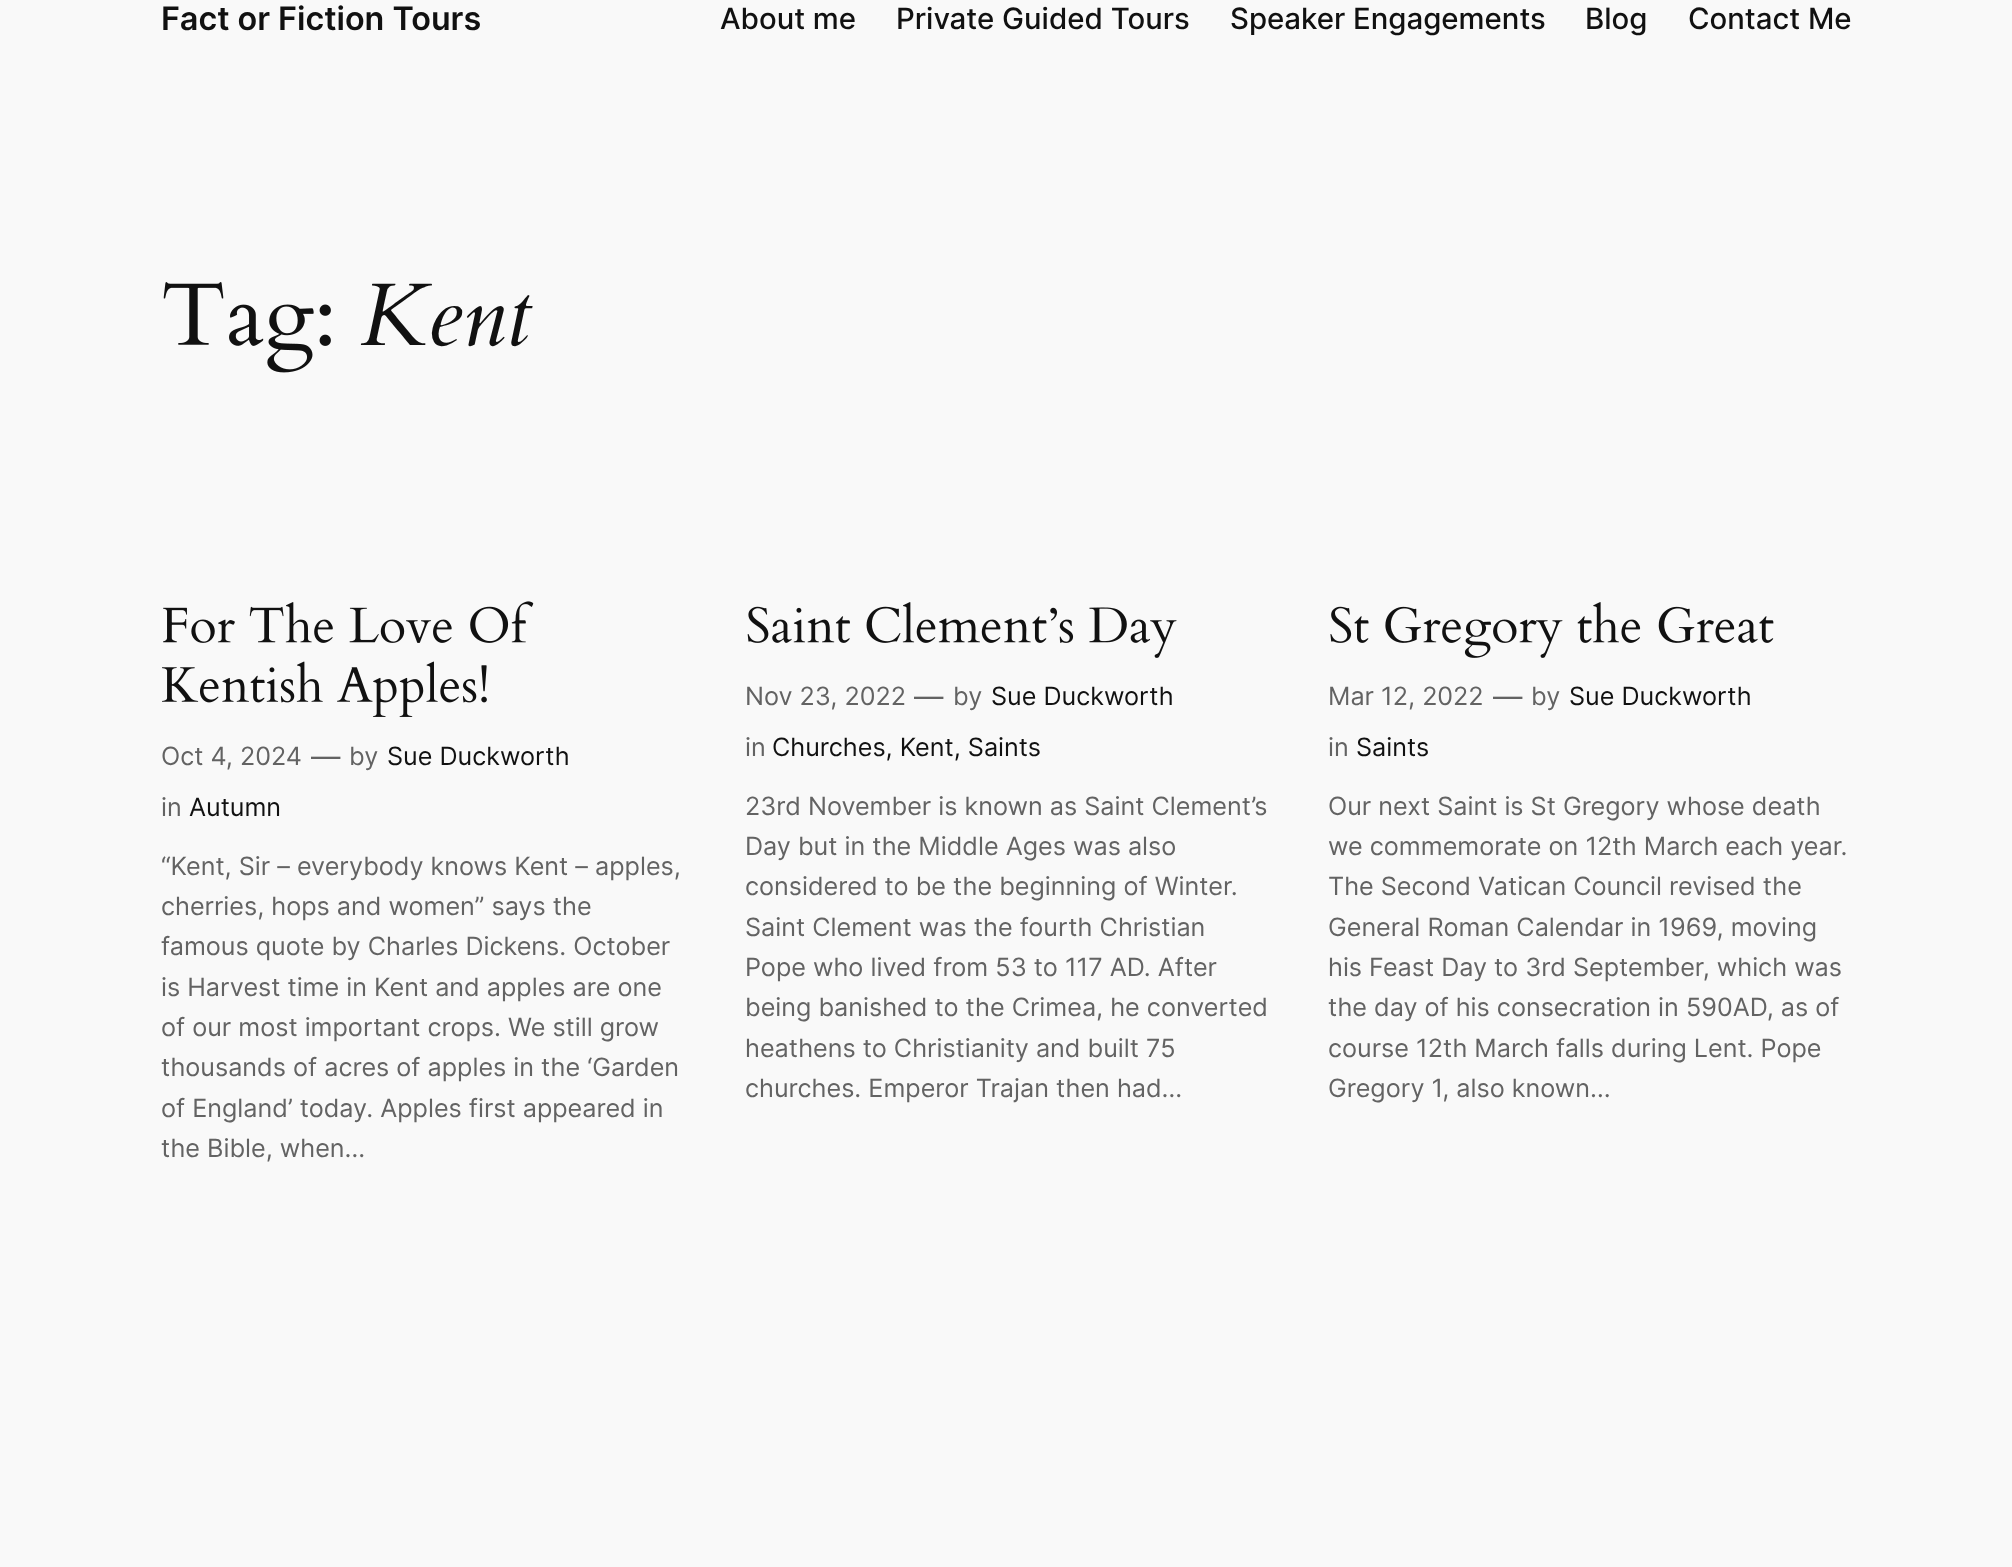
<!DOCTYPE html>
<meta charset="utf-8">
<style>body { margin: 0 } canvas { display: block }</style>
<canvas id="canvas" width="2012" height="1567"></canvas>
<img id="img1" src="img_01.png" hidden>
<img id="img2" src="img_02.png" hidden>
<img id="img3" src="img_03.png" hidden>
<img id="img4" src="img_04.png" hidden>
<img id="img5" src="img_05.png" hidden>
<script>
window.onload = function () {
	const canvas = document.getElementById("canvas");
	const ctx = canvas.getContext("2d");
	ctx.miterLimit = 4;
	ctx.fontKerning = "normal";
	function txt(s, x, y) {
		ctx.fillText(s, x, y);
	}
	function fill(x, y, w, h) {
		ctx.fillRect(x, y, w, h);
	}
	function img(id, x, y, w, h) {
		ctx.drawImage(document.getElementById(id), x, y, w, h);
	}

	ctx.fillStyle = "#F9F9F9";
	fill(0, 0, 2012, 1567);
	img("img1", 163, 282, 168, 91);
	img("img2", 163, 601, 371, 42);
	img("img3", 162, 661, 325, 56);
	img("img4", 747, 602, 430, 56);
	img("img5", 1330, 602, 444, 56);
	ctx.font = "600 32.4px Inter";
	ctx.fillStyle = "#111111";
	txt("Fact or Fiction Tours", 161, 30);
	ctx.font = "500 29.4px Inter";
	txt("About me", 720, 29);
	txt("Private Guided Tours", 896, 29);
	txt("Speaker Engagements", 1230, 29);
	txt("Blog", 1585, 29);
	txt("Contact Me", 1688, 29);
	ctx.font = "italic 89px Cardo";
	txt("Kent", 360, 345);
	ctx.font = "25.2px Inter";
	ctx.fillStyle = "#636363";
	txt("Oct 4, 2024", 161, 765);
	ctx.font = "29.4px Inter";
	txt("—", 311, 767);
	ctx.font = "25.2px Inter";
	txt("by", 349, 765);
	ctx.fillStyle = "#111111";
	txt("Sue Duckworth", 387, 765);
	ctx.fillStyle = "#636363";
	txt("in", 161, 816);
	ctx.fillStyle = "#111111";
	txt("Autumn", 189, 816);
	ctx.fillStyle = "#636363";
	txt("“Kent, Sir – everybody knows Kent – apples,", 161, 875);
	txt("cherries, hops and women” says the", 161, 915);
	txt("famous quote by Charles Dickens. October", 161, 955);
	txt("is Harvest time in Kent and apples are one", 161, 996);
	txt("of our most important crops. We still grow", 161, 1036);
	txt("thousands of acres of apples in the ‘Garden", 161, 1076);
	txt("of England’ today. Apples first appeared in", 161, 1117);
	txt("the Bible, when…", 161, 1157);
	txt("Nov 23, 2022", 745, 705);
	ctx.font = "29.4px Inter";
	txt("—", 914, 707);
	ctx.font = "25.2px Inter";
	txt("by", 953, 705);
	ctx.fillStyle = "#111111";
	txt("Sue Duckworth", 991, 705);
	ctx.fillStyle = "#636363";
	txt("in", 745, 756);
	ctx.fillStyle = "#111111";
	txt("Churches, Kent, Saints", 772, 756);
	ctx.fillStyle = "#636363";
	txt("23rd November is known as Saint Clement’s", 745, 815);
	txt("Day but in the Middle Ages was also", 745, 855);
	txt("considered to be the beginning of Winter.", 745, 895);
	txt("Saint Clement was the fourth Christian", 745, 936);
	txt("Pope who lived from 53 to 117 AD. After", 745, 976);
	txt("being banished to the Crimea, he converted", 745, 1016);
	txt("heathens to Christianity and built 75", 745, 1057);
	txt("churches. Emperor Trajan then had…", 745, 1097);
	txt("Mar 12, 2022", 1328, 705);
	ctx.font = "29.4px Inter";
	txt("—", 1493, 707);
	ctx.font = "25.2px Inter";
	txt("by", 1531, 705);
	ctx.fillStyle = "#111111";
	txt("Sue Duckworth", 1569, 705);
	ctx.fillStyle = "#636363";
	txt("in", 1328, 756);
	ctx.fillStyle = "#111111";
	txt("Saints", 1356, 756);
	ctx.fillStyle = "#636363";
	txt("Our next Saint is St Gregory whose death", 1328, 815);
	txt("we commemorate on 12th March each year.", 1328, 855);
	txt("The Second Vatican Council revised the", 1328, 895);
	txt("General Roman Calendar in 1969, moving", 1328, 936);
	txt("his Feast Day to 3rd September, which was", 1328, 976);
	txt("the day of his consecration in 590AD, as of", 1328, 1016);
	txt("course 12th March falls during Lent. Pope", 1328, 1057);
	txt("Gregory 1, also known…", 1328, 1097);
};
</script>
